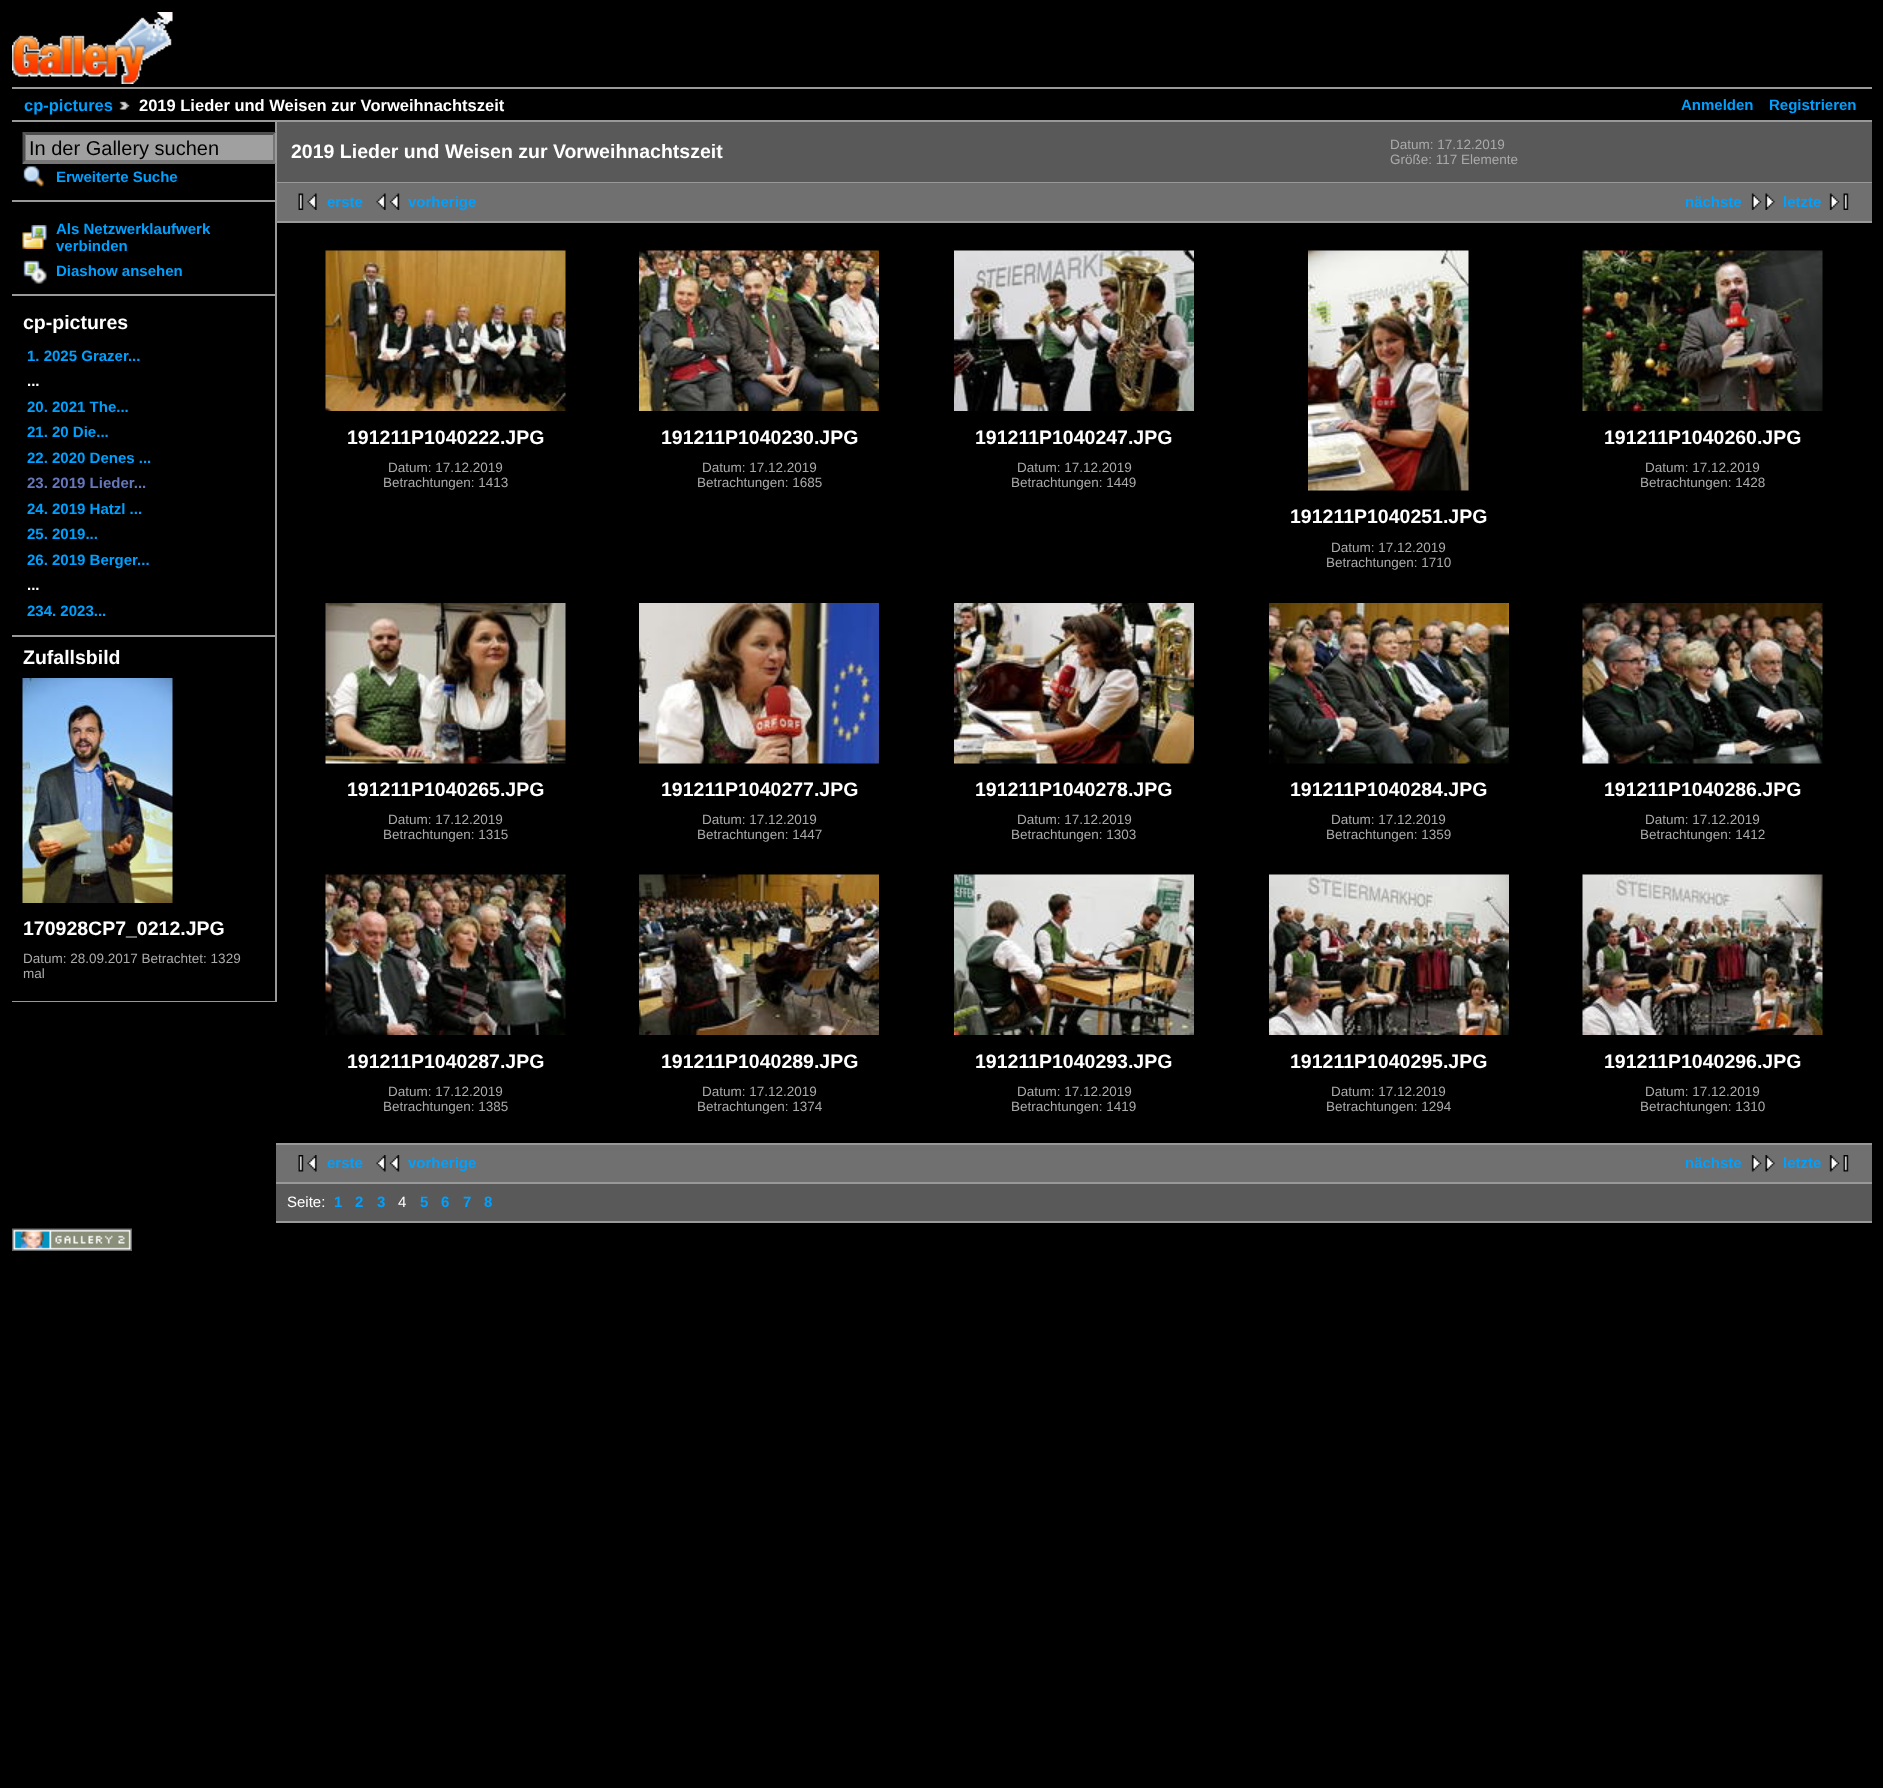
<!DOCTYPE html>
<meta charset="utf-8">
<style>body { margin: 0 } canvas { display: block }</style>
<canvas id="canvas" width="1883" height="1788"></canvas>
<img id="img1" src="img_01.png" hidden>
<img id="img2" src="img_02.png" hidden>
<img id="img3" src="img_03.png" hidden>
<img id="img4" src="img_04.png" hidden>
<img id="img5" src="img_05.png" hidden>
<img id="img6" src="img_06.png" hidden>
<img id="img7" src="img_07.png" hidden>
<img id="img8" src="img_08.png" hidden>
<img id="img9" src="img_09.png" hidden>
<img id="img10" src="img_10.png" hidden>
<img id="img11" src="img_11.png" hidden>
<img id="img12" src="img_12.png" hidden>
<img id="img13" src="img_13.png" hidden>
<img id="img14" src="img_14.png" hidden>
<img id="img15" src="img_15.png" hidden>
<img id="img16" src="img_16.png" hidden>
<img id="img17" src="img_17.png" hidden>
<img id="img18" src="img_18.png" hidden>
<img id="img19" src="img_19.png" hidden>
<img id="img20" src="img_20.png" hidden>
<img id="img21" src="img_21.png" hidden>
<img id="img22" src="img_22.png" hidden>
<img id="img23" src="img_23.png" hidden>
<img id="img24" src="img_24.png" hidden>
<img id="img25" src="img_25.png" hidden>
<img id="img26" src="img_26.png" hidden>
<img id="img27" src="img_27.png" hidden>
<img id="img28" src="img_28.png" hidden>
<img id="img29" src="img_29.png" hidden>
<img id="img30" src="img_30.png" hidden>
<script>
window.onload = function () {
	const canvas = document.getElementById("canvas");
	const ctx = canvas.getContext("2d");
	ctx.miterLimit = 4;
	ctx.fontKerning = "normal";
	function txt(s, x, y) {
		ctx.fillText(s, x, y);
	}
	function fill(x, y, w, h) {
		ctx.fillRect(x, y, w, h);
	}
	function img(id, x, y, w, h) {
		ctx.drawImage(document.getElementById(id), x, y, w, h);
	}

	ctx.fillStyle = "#000000";
	fill(0, 0, 1883, 1788);
	img("img1", 12, 12, 161, 72);
	ctx.fillStyle = "#999999";
	fill(12, 87, 1860, 2);
	fill(12, 120, 1860, 2);
	img("img2", 119, 101, 11, 9);
	fill(276, 182, 1596, 1);
	fill(276, 221, 1596, 2);
	fill(275, 122, 2, 880);
	fill(12, 200, 263, 2);
	ctx.fillStyle = "#A0A0A0";
	fill(23, 132, 252, 31);
	ctx.fillStyle = "#4F4F4F";
	ctx.beginPath();
	ctx.moveTo(22, 132);
	ctx.lineTo(276, 132);
	ctx.lineTo(273, 135);
	ctx.lineTo(26, 135);
	ctx.closePath();
	ctx.fill();
	ctx.save();
	ctx.beginPath();
	ctx.rect(12, 122, 263, 880);
	ctx.clip();
	ctx.fillStyle = "#767676";
	ctx.beginPath();
	ctx.moveTo(276, 132);
	ctx.lineTo(276, 163.5);
	ctx.lineTo(273, 160.5);
	ctx.lineTo(273, 135);
	ctx.closePath();
	ctx.fill();
	ctx.restore();
	ctx.fillStyle = "#767676";
	ctx.beginPath();
	ctx.moveTo(276, 164);
	ctx.lineTo(22, 164);
	ctx.lineTo(26, 160);
	ctx.lineTo(273, 160);
	ctx.closePath();
	ctx.fill();
	ctx.fillStyle = "#4F4F4F";
	ctx.beginPath();
	ctx.moveTo(22.5, 163.5);
	ctx.lineTo(22.5, 132);
	ctx.lineTo(25.5, 135);
	ctx.lineTo(25.5, 160.5);
	ctx.closePath();
	ctx.fill();
	img("img3", 23, 166, 21, 22);
	ctx.fillStyle = "#999999";
	fill(12, 294, 263, 2);
	img("img4", 22, 225, 25, 24);
	img("img5", 23, 260, 24, 24);
	fill(12, 635, 263, 2);
	fill(12, 1001, 263, 1);
	img("img6", 22, 678, 151, 225);
	ctx.fillStyle = "#595959";
	fill(277, 122, 1595, 60);
	ctx.fillStyle = "#707070";
	fill(277, 183, 1595, 38);
	img("img7", 298, 193, 19, 17);
	img("img8", 376, 193, 24, 17);
	img("img9", 1751, 193, 24, 17);
	img("img10", 1829, 193, 20, 17);
	ctx.fillStyle = "#999999";
	fill(276, 1143, 1596, 2);
	img("img11", 325, 250, 241, 161);
	img("img12", 639, 250, 240, 161);
	img("img13", 954, 250, 240, 161);
	img("img14", 1582, 250, 241, 161);
	img("img15", 1308, 250, 161, 241);
	img("img16", 325, 603, 241, 161);
	img("img17", 639, 603, 240, 161);
	img("img18", 954, 603, 240, 161);
	img("img19", 1269, 603, 240, 161);
	img("img20", 1582, 603, 241, 161);
	img("img21", 325, 874, 241, 161);
	img("img22", 639, 874, 240, 161);
	img("img23", 954, 874, 240, 161);
	img("img24", 1269, 874, 240, 161);
	img("img25", 1582, 874, 241, 161);
	ctx.fillStyle = "#707070";
	fill(276, 1145, 1596, 37);
	ctx.fillStyle = "#999999";
	fill(276, 1182, 1596, 2);
	img("img26", 298, 1155, 19, 17);
	img("img27", 376, 1155, 24, 17);
	img("img28", 1751, 1155, 24, 17);
	img("img29", 1829, 1155, 20, 17);
	ctx.fillStyle = "#595959";
	fill(276, 1184, 1596, 37);
	ctx.fillStyle = "#999999";
	fill(276, 1221, 1596, 2);
	img("img30", 12, 1228, 120, 23);
	ctx.font = "bold 16.5px Liberation Sans";
	ctx.fillStyle = "#00A0FF";
	txt("cp-pictures", 24, 111);
	ctx.fillStyle = "#FFFFFF";
	txt("2019 Lieder und Weisen zur Vorweihnachtszeit", 139, 111);
	ctx.font = "bold 15px Liberation Sans";
	ctx.fillStyle = "#00A0FF";
	txt("Anmelden", 1681, 110);
	txt("Registrieren", 1769, 110);
	ctx.font = "20px Liberation Sans";
	ctx.fillStyle = "#000000";
	txt("In der Gallery suchen", 29, 155);
	ctx.font = "bold 15px Liberation Sans";
	ctx.fillStyle = "#00A0FF";
	txt("Erweiterte Suche", 56, 182);
	txt("Als Netzwerklaufwerk", 56, 234);
	txt("verbinden", 56, 251);
	txt("Diashow ansehen", 56, 276);
	ctx.font = "bold 19.5px Liberation Sans";
	ctx.fillStyle = "#FFFFFF";
	txt("cp-pictures", 23, 329);
	ctx.font = "bold 15px Liberation Sans";
	ctx.fillStyle = "#00A0FF";
	txt("1. 2025 Grazer...", 27, 361);
	ctx.fillStyle = "#FFFFFF";
	txt("...", 27, 386);
	ctx.fillStyle = "#00A0FF";
	txt("20. 2021 The...", 27, 412);
	txt("21. 20 Die...", 27, 437);
	txt("22. 2020 Denes ...", 27, 463);
	ctx.fillStyle = "#6677BB";
	txt("23. 2019 Lieder...", 27, 488);
	ctx.fillStyle = "#00A0FF";
	txt("24. 2019 Hatzl ...", 27, 514);
	txt("25. 2019...", 27, 539);
	txt("26. 2019 Berger...", 27, 565);
	ctx.fillStyle = "#FFFFFF";
	txt("...", 27, 590);
	ctx.fillStyle = "#00A0FF";
	txt("234. 2023...", 27, 616);
	ctx.font = "bold 19.5px Liberation Sans";
	ctx.fillStyle = "#FFFFFF";
	txt("Zufallsbild", 23, 664);
	txt("170928CP7_0212.JPG", 23, 935);
	ctx.font = "13.5px Liberation Sans";
	ctx.fillStyle = "#AAAAAA";
	txt("Datum: 28.09.2017 Betrachtet: 1329", 23, 963);
	txt("mal", 23, 978);
	ctx.font = "bold 19.5px Liberation Sans";
	ctx.fillStyle = "#FFFFFF";
	txt("2019 Lieder und Weisen zur Vorweihnachtszeit", 291, 158);
	ctx.font = "13.5px Liberation Sans";
	ctx.fillStyle = "#AAAAAA";
	txt("Datum: 17.12.2019", 1390, 149);
	txt("Größe: 117 Elemente", 1390, 164);
	ctx.font = "bold 15px Liberation Sans";
	ctx.fillStyle = "#00A0FF";
	txt("erste", 327, 207);
	txt("vorherige", 408, 207);
	txt("nächste", 1685, 207);
	txt("letzte", 1783, 207);
	ctx.font = "bold 19.5px Liberation Sans";
	ctx.fillStyle = "#FFFFFF";
	txt("191211P1040222.JPG", 347, 444);
	ctx.font = "13.5px Liberation Sans";
	ctx.fillStyle = "#AAAAAA";
	txt("Datum: 17.12.2019", 388, 472);
	txt("Betrachtungen: 1413", 383, 487);
	ctx.font = "bold 19.5px Liberation Sans";
	ctx.fillStyle = "#FFFFFF";
	txt("191211P1040230.JPG", 661, 444);
	ctx.font = "13.5px Liberation Sans";
	ctx.fillStyle = "#AAAAAA";
	txt("Datum: 17.12.2019", 702, 472);
	txt("Betrachtungen: 1685", 697, 487);
	ctx.font = "bold 19.5px Liberation Sans";
	ctx.fillStyle = "#FFFFFF";
	txt("191211P1040247.JPG", 975, 444);
	ctx.font = "13.5px Liberation Sans";
	ctx.fillStyle = "#AAAAAA";
	txt("Datum: 17.12.2019", 1017, 472);
	txt("Betrachtungen: 1449", 1011, 487);
	ctx.font = "bold 19.5px Liberation Sans";
	ctx.fillStyle = "#FFFFFF";
	txt("191211P1040260.JPG", 1604, 444);
	ctx.font = "13.5px Liberation Sans";
	ctx.fillStyle = "#AAAAAA";
	txt("Datum: 17.12.2019", 1645, 472);
	txt("Betrachtungen: 1428", 1640, 487);
	ctx.font = "bold 19.5px Liberation Sans";
	ctx.fillStyle = "#FFFFFF";
	txt("191211P1040251.JPG", 1290, 523);
	ctx.font = "13.5px Liberation Sans";
	ctx.fillStyle = "#AAAAAA";
	txt("Datum: 17.12.2019", 1331, 552);
	txt("Betrachtungen: 1710", 1326, 567);
	ctx.font = "bold 19.5px Liberation Sans";
	ctx.fillStyle = "#FFFFFF";
	txt("191211P1040265.JPG", 347, 796);
	ctx.font = "13.5px Liberation Sans";
	ctx.fillStyle = "#AAAAAA";
	txt("Datum: 17.12.2019", 388, 824);
	txt("Betrachtungen: 1315", 383, 839);
	ctx.font = "bold 19.5px Liberation Sans";
	ctx.fillStyle = "#FFFFFF";
	txt("191211P1040277.JPG", 661, 796);
	ctx.font = "13.5px Liberation Sans";
	ctx.fillStyle = "#AAAAAA";
	txt("Datum: 17.12.2019", 702, 824);
	txt("Betrachtungen: 1447", 697, 839);
	ctx.font = "bold 19.5px Liberation Sans";
	ctx.fillStyle = "#FFFFFF";
	txt("191211P1040278.JPG", 975, 796);
	ctx.font = "13.5px Liberation Sans";
	ctx.fillStyle = "#AAAAAA";
	txt("Datum: 17.12.2019", 1017, 824);
	txt("Betrachtungen: 1303", 1011, 839);
	ctx.font = "bold 19.5px Liberation Sans";
	ctx.fillStyle = "#FFFFFF";
	txt("191211P1040284.JPG", 1290, 796);
	ctx.font = "13.5px Liberation Sans";
	ctx.fillStyle = "#AAAAAA";
	txt("Datum: 17.12.2019", 1331, 824);
	txt("Betrachtungen: 1359", 1326, 839);
	ctx.font = "bold 19.5px Liberation Sans";
	ctx.fillStyle = "#FFFFFF";
	txt("191211P1040286.JPG", 1604, 796);
	ctx.font = "13.5px Liberation Sans";
	ctx.fillStyle = "#AAAAAA";
	txt("Datum: 17.12.2019", 1645, 824);
	txt("Betrachtungen: 1412", 1640, 839);
	ctx.font = "bold 19.5px Liberation Sans";
	ctx.fillStyle = "#FFFFFF";
	txt("191211P1040287.JPG", 347, 1068);
	ctx.font = "13.5px Liberation Sans";
	ctx.fillStyle = "#AAAAAA";
	txt("Datum: 17.12.2019", 388, 1096);
	txt("Betrachtungen: 1385", 383, 1111);
	ctx.font = "bold 19.5px Liberation Sans";
	ctx.fillStyle = "#FFFFFF";
	txt("191211P1040289.JPG", 661, 1068);
	ctx.font = "13.5px Liberation Sans";
	ctx.fillStyle = "#AAAAAA";
	txt("Datum: 17.12.2019", 702, 1096);
	txt("Betrachtungen: 1374", 697, 1111);
	ctx.font = "bold 19.5px Liberation Sans";
	ctx.fillStyle = "#FFFFFF";
	txt("191211P1040293.JPG", 975, 1068);
	ctx.font = "13.5px Liberation Sans";
	ctx.fillStyle = "#AAAAAA";
	txt("Datum: 17.12.2019", 1017, 1096);
	txt("Betrachtungen: 1419", 1011, 1111);
	ctx.font = "bold 19.5px Liberation Sans";
	ctx.fillStyle = "#FFFFFF";
	txt("191211P1040295.JPG", 1290, 1068);
	ctx.font = "13.5px Liberation Sans";
	ctx.fillStyle = "#AAAAAA";
	txt("Datum: 17.12.2019", 1331, 1096);
	txt("Betrachtungen: 1294", 1326, 1111);
	ctx.font = "bold 19.5px Liberation Sans";
	ctx.fillStyle = "#FFFFFF";
	txt("191211P1040296.JPG", 1604, 1068);
	ctx.font = "13.5px Liberation Sans";
	ctx.fillStyle = "#AAAAAA";
	txt("Datum: 17.12.2019", 1645, 1096);
	txt("Betrachtungen: 1310", 1640, 1111);
	ctx.font = "bold 15px Liberation Sans";
	ctx.fillStyle = "#00A0FF";
	txt("erste", 327, 1168);
	txt("vorherige", 408, 1168);
	txt("nächste", 1685, 1168);
	txt("letzte", 1783, 1168);
	ctx.font = "15px Liberation Sans";
	ctx.fillStyle = "#FFFFFF";
	txt("Seite:", 287, 1207);
	ctx.font = "bold 15px Liberation Sans";
	ctx.fillStyle = "#00A0FF";
	txt("1", 334, 1207);
	txt("2", 355, 1207);
	txt("3", 377, 1207);
	ctx.font = "15px Liberation Sans";
	ctx.fillStyle = "#FFFFFF";
	txt("4", 398, 1207);
	ctx.font = "bold 15px Liberation Sans";
	ctx.fillStyle = "#00A0FF";
	txt("5", 420, 1207);
	txt("6", 441, 1207);
	txt("7", 463, 1207);
	txt("8", 484, 1207);
};
</script>
